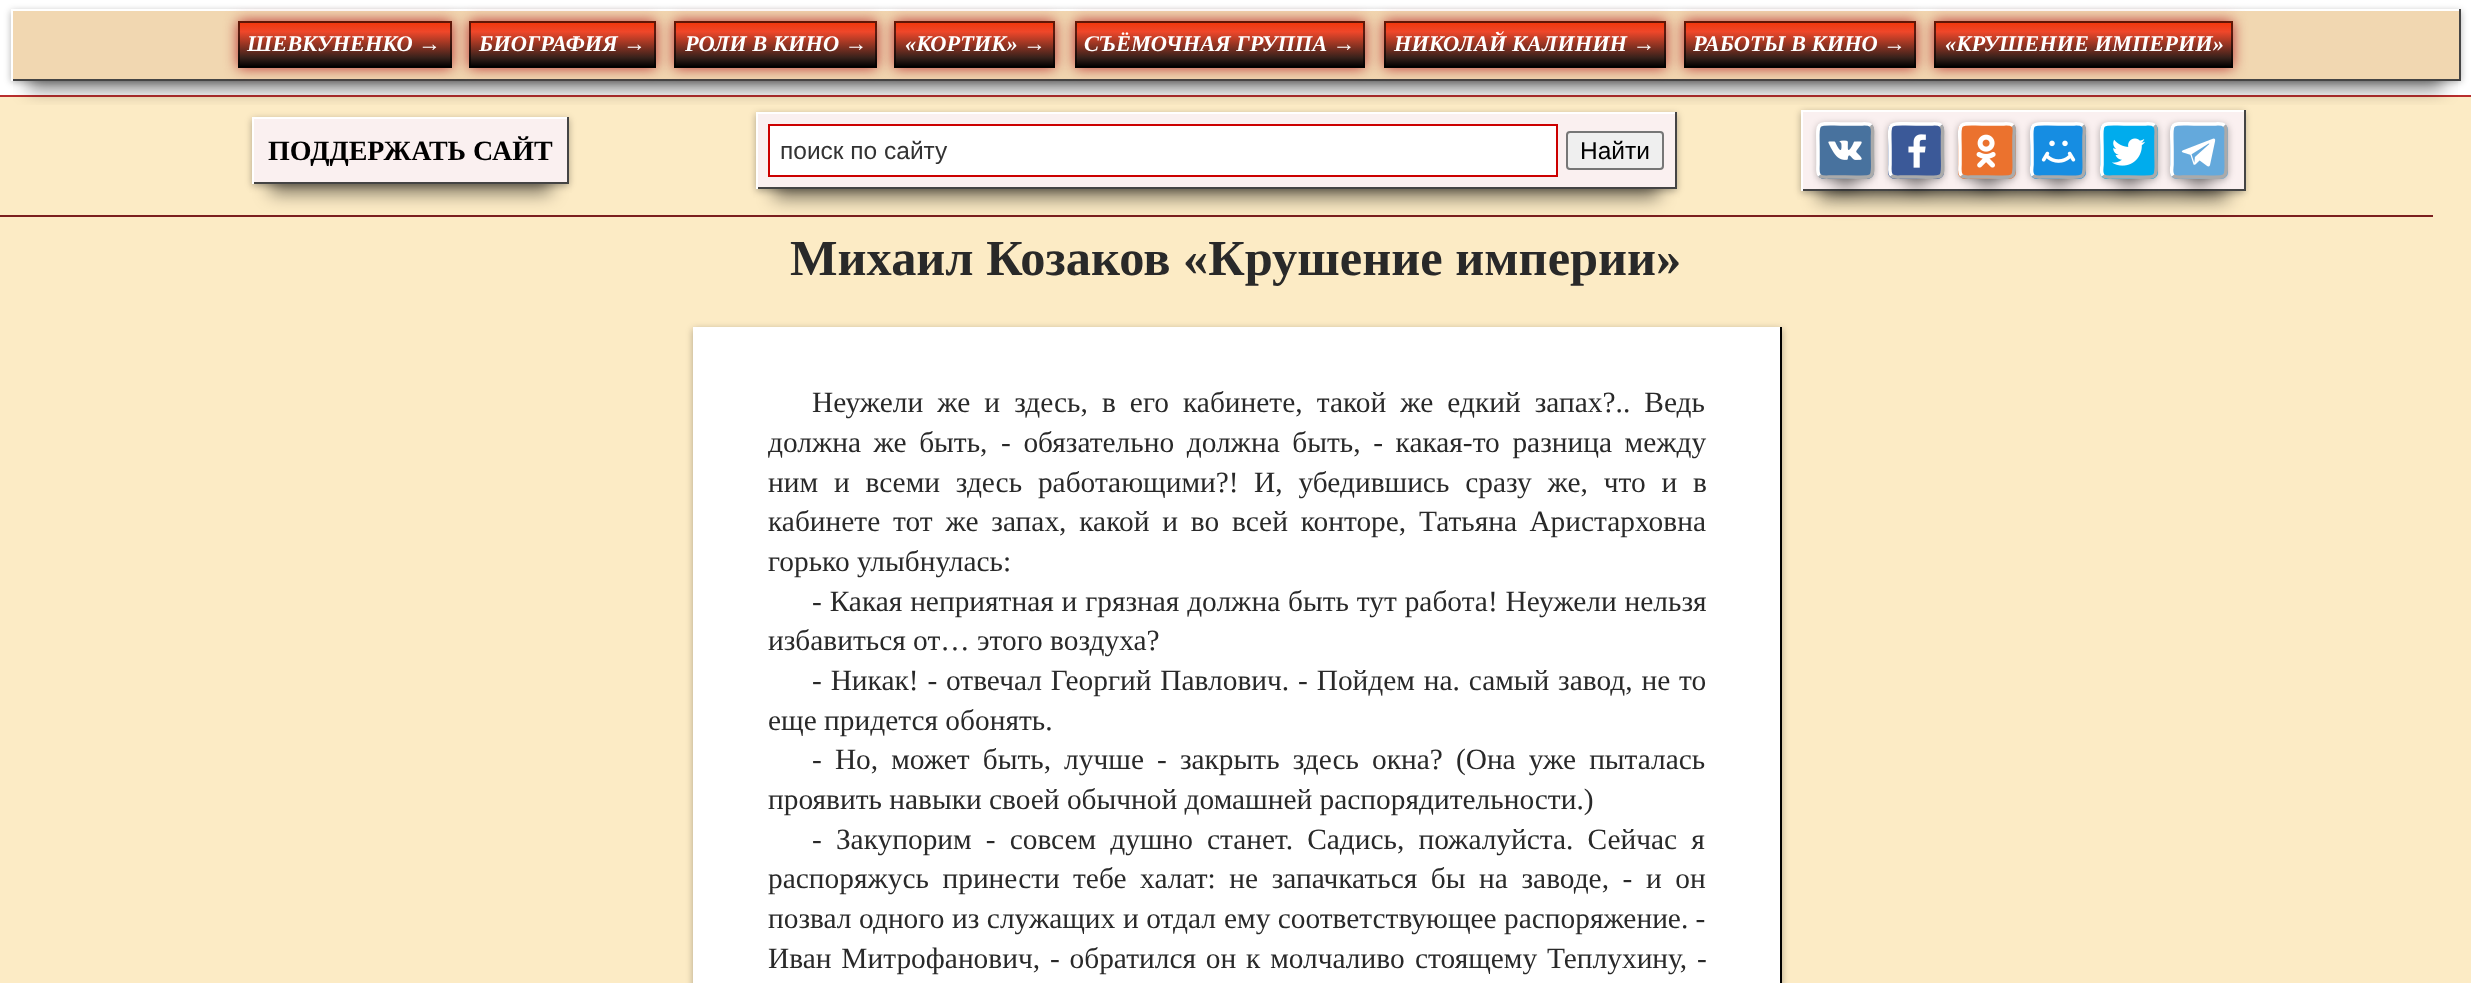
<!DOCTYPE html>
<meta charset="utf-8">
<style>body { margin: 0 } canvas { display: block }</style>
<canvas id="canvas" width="2471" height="983"></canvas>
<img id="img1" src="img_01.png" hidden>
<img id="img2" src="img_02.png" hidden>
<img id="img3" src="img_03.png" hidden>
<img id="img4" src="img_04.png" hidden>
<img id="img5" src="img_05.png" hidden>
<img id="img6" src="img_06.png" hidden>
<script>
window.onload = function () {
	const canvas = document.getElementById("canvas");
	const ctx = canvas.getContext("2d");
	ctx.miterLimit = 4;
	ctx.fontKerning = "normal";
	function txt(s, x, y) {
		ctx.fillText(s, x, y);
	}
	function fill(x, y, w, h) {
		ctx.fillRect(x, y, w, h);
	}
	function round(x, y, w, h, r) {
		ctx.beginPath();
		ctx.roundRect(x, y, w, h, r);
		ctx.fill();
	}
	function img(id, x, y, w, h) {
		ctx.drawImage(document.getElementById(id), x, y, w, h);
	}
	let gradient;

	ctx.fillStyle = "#FFFFFF";
	fill(0, 0, 2471, 983);
	ctx.save();
	ctx.beginPath();
	ctx.moveTo(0, 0);
	ctx.lineTo(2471, 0);
	ctx.lineTo(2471, 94);
	ctx.lineTo(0, 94);
	ctx.closePath();
	ctx.moveTo(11, 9);
	ctx.lineTo(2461, 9);
	ctx.lineTo(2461, 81);
	ctx.lineTo(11, 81);
	ctx.closePath();
	ctx.clip("evenodd");
	ctx.fillStyle = "rgba(0, 0, 0, 0.3)";
	ctx.filter = "blur(3.5px)";
	ctx.beginPath();
	ctx.rect(11, 11, 2450, 71);
	ctx.fill();
	ctx.filter = "none";
	ctx.restore();
	ctx.fillStyle = "#FCEBC5";
	fill(0, 97, 2471, 886);
	ctx.fillStyle = "#B82E2E";
	fill(0, 95, 2471, 2);
	ctx.save();
	ctx.beginPath();
	ctx.rect(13, 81, 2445, 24);
	ctx.clip();
	ctx.fillStyle = "rgba(0, 0, 0, 0.5)";
	ctx.filter = "blur(9px)";
	ctx.beginPath();
	ctx.rect(28, 53, 2415, 36);
	ctx.fill();
	ctx.filter = "none";
	ctx.restore();
	ctx.fillStyle = "rgba(232, 189, 125, 0.6)";
	fill(13, 11, 2446, 68);
	ctx.fillStyle = "#FFFFFF";
	fill(2460, 9, 1, 2);
	ctx.fillStyle = "#444444";
	fill(2459, 9, 2, 72);
	fill(11, 79, 2450, 2);
	ctx.fillStyle = "#FFFFFF";
	fill(11, 79, 2, 2);
	ctx.fillStyle = "#B82E2E";
	ctx.filter = "blur(7px)";
	ctx.beginPath();
	ctx.rect(238, 21, 214, 47);
	ctx.fill();
	ctx.filter = "none";
	gradient = ctx.createLinearGradient(345, -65, 345, 23);
	gradient.addColorStop(0, "#F2370D");
	gradient.addColorStop(0.1, "#EF472A");
	gradient.addColorStop(0.4, "#36211B");
	gradient.addColorStop(0.5, "#040101");
	gradient.addColorStop(0.6, "#36211B");
	gradient.addColorStop(0.9, "#EF472A");
	gradient.addColorStop(1, "#F2370D");
	ctx.fillStyle = gradient;
	fill(238, 21, 214, 2);
	gradient = ctx.createLinearGradient(345, 23, 345, 110);
	gradient.addColorStop(0, "#F2370D");
	gradient.addColorStop(0.1, "#EF472A");
	gradient.addColorStop(0.4, "#36211B");
	gradient.addColorStop(0.5, "#040101");
	gradient.addColorStop(0.6, "#36211B");
	gradient.addColorStop(0.9, "#EF472A");
	gradient.addColorStop(1, "#F2370D");
	ctx.fillStyle = gradient;
	fill(238, 23, 214, 45);
	ctx.strokeStyle = "rgba(0, 0, 0, 0.6)";
	ctx.lineWidth = 2;
	ctx.strokeRect(239, 22, 212, 45);
	ctx.fillStyle = "#B82E2E";
	ctx.filter = "blur(7px)";
	ctx.beginPath();
	ctx.rect(469, 21, 187, 47);
	ctx.fill();
	ctx.filter = "none";
	gradient = ctx.createLinearGradient(563, -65, 563, 23);
	gradient.addColorStop(0, "#F2370D");
	gradient.addColorStop(0.1, "#EF472A");
	gradient.addColorStop(0.4, "#36211B");
	gradient.addColorStop(0.5, "#040101");
	gradient.addColorStop(0.6, "#36211B");
	gradient.addColorStop(0.9, "#EF472A");
	gradient.addColorStop(1, "#F2370D");
	ctx.fillStyle = gradient;
	fill(469, 21, 187, 2);
	gradient = ctx.createLinearGradient(563, 23, 563, 110);
	gradient.addColorStop(0, "#F2370D");
	gradient.addColorStop(0.1, "#EF472A");
	gradient.addColorStop(0.4, "#36211B");
	gradient.addColorStop(0.5, "#040101");
	gradient.addColorStop(0.6, "#36211B");
	gradient.addColorStop(0.9, "#EF472A");
	gradient.addColorStop(1, "#F2370D");
	ctx.fillStyle = gradient;
	fill(469, 23, 187, 45);
	ctx.strokeRect(470, 22, 185, 45);
	ctx.fillStyle = "#B82E2E";
	ctx.filter = "blur(7px)";
	ctx.beginPath();
	ctx.rect(674, 21, 203, 47);
	ctx.fill();
	ctx.filter = "none";
	gradient = ctx.createLinearGradient(775, -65, 775, 23);
	gradient.addColorStop(0, "#F2370D");
	gradient.addColorStop(0.1, "#EF472A");
	gradient.addColorStop(0.4, "#36211B");
	gradient.addColorStop(0.5, "#040101");
	gradient.addColorStop(0.6, "#36211B");
	gradient.addColorStop(0.9, "#EF472A");
	gradient.addColorStop(1, "#F2370D");
	ctx.fillStyle = gradient;
	fill(674, 21, 203, 2);
	gradient = ctx.createLinearGradient(775, 23, 775, 110);
	gradient.addColorStop(0, "#F2370D");
	gradient.addColorStop(0.1, "#EF472A");
	gradient.addColorStop(0.4, "#36211B");
	gradient.addColorStop(0.5, "#040101");
	gradient.addColorStop(0.6, "#36211B");
	gradient.addColorStop(0.9, "#EF472A");
	gradient.addColorStop(1, "#F2370D");
	ctx.fillStyle = gradient;
	fill(674, 23, 203, 45);
	ctx.strokeRect(675, 22, 201, 45);
	ctx.fillStyle = "#B82E2E";
	ctx.filter = "blur(7px)";
	ctx.beginPath();
	ctx.rect(894, 21, 161, 47);
	ctx.fill();
	ctx.filter = "none";
	gradient = ctx.createLinearGradient(975, -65, 975, 23);
	gradient.addColorStop(0, "#F2370D");
	gradient.addColorStop(0.1, "#EF472A");
	gradient.addColorStop(0.4, "#36211B");
	gradient.addColorStop(0.5, "#040101");
	gradient.addColorStop(0.6, "#36211B");
	gradient.addColorStop(0.9, "#EF472A");
	gradient.addColorStop(1, "#F2370D");
	ctx.fillStyle = gradient;
	fill(894, 21, 161, 2);
	gradient = ctx.createLinearGradient(975, 23, 975, 110);
	gradient.addColorStop(0, "#F2370D");
	gradient.addColorStop(0.1, "#EF472A");
	gradient.addColorStop(0.4, "#36211B");
	gradient.addColorStop(0.5, "#040101");
	gradient.addColorStop(0.6, "#36211B");
	gradient.addColorStop(0.9, "#EF472A");
	gradient.addColorStop(1, "#F2370D");
	ctx.fillStyle = gradient;
	fill(894, 23, 161, 45);
	ctx.strokeRect(895, 22, 159, 45);
	ctx.fillStyle = "#B82E2E";
	ctx.filter = "blur(7px)";
	ctx.beginPath();
	ctx.rect(1075, 21, 290, 47);
	ctx.fill();
	ctx.filter = "none";
	gradient = ctx.createLinearGradient(1220, -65, 1220, 23);
	gradient.addColorStop(0, "#F2370D");
	gradient.addColorStop(0.1, "#EF472A");
	gradient.addColorStop(0.4, "#36211B");
	gradient.addColorStop(0.5, "#040101");
	gradient.addColorStop(0.6, "#36211B");
	gradient.addColorStop(0.9, "#EF472A");
	gradient.addColorStop(1, "#F2370D");
	ctx.fillStyle = gradient;
	fill(1075, 21, 290, 2);
	gradient = ctx.createLinearGradient(1220, 23, 1220, 110);
	gradient.addColorStop(0, "#F2370D");
	gradient.addColorStop(0.1, "#EF472A");
	gradient.addColorStop(0.4, "#36211B");
	gradient.addColorStop(0.5, "#040101");
	gradient.addColorStop(0.6, "#36211B");
	gradient.addColorStop(0.9, "#EF472A");
	gradient.addColorStop(1, "#F2370D");
	ctx.fillStyle = gradient;
	fill(1075, 23, 290, 45);
	ctx.strokeRect(1076, 22, 288, 45);
	ctx.fillStyle = "#B82E2E";
	ctx.filter = "blur(7px)";
	ctx.beginPath();
	ctx.rect(1384, 21, 282, 47);
	ctx.fill();
	ctx.filter = "none";
	gradient = ctx.createLinearGradient(1525, -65, 1525, 23);
	gradient.addColorStop(0, "#F2370D");
	gradient.addColorStop(0.1, "#EF472A");
	gradient.addColorStop(0.4, "#36211B");
	gradient.addColorStop(0.5, "#040101");
	gradient.addColorStop(0.6, "#36211B");
	gradient.addColorStop(0.9, "#EF472A");
	gradient.addColorStop(1, "#F2370D");
	ctx.fillStyle = gradient;
	fill(1384, 21, 282, 2);
	gradient = ctx.createLinearGradient(1525, 23, 1525, 110);
	gradient.addColorStop(0, "#F2370D");
	gradient.addColorStop(0.1, "#EF472A");
	gradient.addColorStop(0.4, "#36211B");
	gradient.addColorStop(0.5, "#040101");
	gradient.addColorStop(0.6, "#36211B");
	gradient.addColorStop(0.9, "#EF472A");
	gradient.addColorStop(1, "#F2370D");
	ctx.fillStyle = gradient;
	fill(1384, 23, 282, 45);
	ctx.strokeRect(1385, 22, 280, 45);
	ctx.fillStyle = "#B82E2E";
	ctx.filter = "blur(7px)";
	ctx.beginPath();
	ctx.rect(1684, 21, 232, 47);
	ctx.fill();
	ctx.filter = "none";
	gradient = ctx.createLinearGradient(1800, -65, 1800, 23);
	gradient.addColorStop(0, "#F2370D");
	gradient.addColorStop(0.1, "#EF472A");
	gradient.addColorStop(0.4, "#36211B");
	gradient.addColorStop(0.5, "#040101");
	gradient.addColorStop(0.6, "#36211B");
	gradient.addColorStop(0.9, "#EF472A");
	gradient.addColorStop(1, "#F2370D");
	ctx.fillStyle = gradient;
	fill(1684, 21, 232, 2);
	gradient = ctx.createLinearGradient(1800, 23, 1800, 110);
	gradient.addColorStop(0, "#F2370D");
	gradient.addColorStop(0.1, "#EF472A");
	gradient.addColorStop(0.4, "#36211B");
	gradient.addColorStop(0.5, "#040101");
	gradient.addColorStop(0.6, "#36211B");
	gradient.addColorStop(0.9, "#EF472A");
	gradient.addColorStop(1, "#F2370D");
	ctx.fillStyle = gradient;
	fill(1684, 23, 232, 45);
	ctx.strokeRect(1685, 22, 230, 45);
	ctx.fillStyle = "#B82E2E";
	ctx.filter = "blur(7px)";
	ctx.beginPath();
	ctx.rect(1934, 21, 299, 47);
	ctx.fill();
	ctx.filter = "none";
	gradient = ctx.createLinearGradient(2083, -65, 2083, 23);
	gradient.addColorStop(0, "#F2370D");
	gradient.addColorStop(0.1, "#EF472A");
	gradient.addColorStop(0.4, "#36211B");
	gradient.addColorStop(0.5, "#040101");
	gradient.addColorStop(0.6, "#36211B");
	gradient.addColorStop(0.9, "#EF472A");
	gradient.addColorStop(1, "#F2370D");
	ctx.fillStyle = gradient;
	fill(1934, 21, 299, 2);
	gradient = ctx.createLinearGradient(2083, 23, 2083, 110);
	gradient.addColorStop(0, "#F2370D");
	gradient.addColorStop(0.1, "#EF472A");
	gradient.addColorStop(0.4, "#36211B");
	gradient.addColorStop(0.5, "#040101");
	gradient.addColorStop(0.6, "#36211B");
	gradient.addColorStop(0.9, "#EF472A");
	gradient.addColorStop(1, "#F2370D");
	ctx.fillStyle = gradient;
	fill(1934, 23, 299, 45);
	ctx.strokeRect(1935, 22, 297, 45);
	ctx.fillStyle = "#7B1F1F";
	fill(0, 215, 2433, 2);
	ctx.fillStyle = "rgba(0, 0, 0, 0.3)";
	ctx.filter = "blur(3.5px)";
	ctx.beginPath();
	ctx.rect(252, 119, 317, 67);
	ctx.fill();
	ctx.filter = "none";
	ctx.fillStyle = "rgba(0, 0, 0, 0.5)";
	ctx.filter = "blur(9px)";
	ctx.beginPath();
	ctx.rect(270, 161, 281, 32);
	ctx.fill();
	ctx.filter = "none";
	ctx.fillStyle = "#FAF0F0";
	fill(254, 119, 313, 63);
	ctx.fillStyle = "#FFFFFF";
	fill(252, 117, 317, 2);
	ctx.fillStyle = "#444444";
	fill(567, 117, 2, 67);
	fill(252, 182, 317, 2);
	ctx.fillStyle = "#FFFFFF";
	fill(252, 117, 2, 67);
	ctx.fillStyle = "rgba(0, 0, 0, 0.3)";
	ctx.filter = "blur(3.5px)";
	ctx.beginPath();
	ctx.rect(756, 114, 921, 77);
	ctx.fill();
	ctx.filter = "none";
	ctx.fillStyle = "rgba(0, 0, 0, 0.5)";
	ctx.filter = "blur(9px)";
	ctx.beginPath();
	ctx.rect(774, 156, 885, 42);
	ctx.fill();
	ctx.filter = "none";
	ctx.fillStyle = "#FAF0F0";
	fill(758, 114, 917, 73);
	ctx.fillStyle = "#FFFFFF";
	fill(756, 112, 921, 2);
	ctx.fillStyle = "#444444";
	fill(1675, 112, 2, 77);
	fill(756, 187, 921, 2);
	ctx.fillStyle = "#FFFFFF";
	fill(756, 112, 2, 77);
	ctx.beginPath();
	ctx.rect(769, 125, 788, 51);
	ctx.fill();
	ctx.strokeStyle = "#CC0000";
	ctx.stroke();
	ctx.fillStyle = "#EFEFEF";
	ctx.beginPath();
	ctx.roundRect(1567, 132, 96, 37, 3);
	ctx.fill();
	ctx.strokeStyle = "#767676";
	ctx.stroke();
	ctx.fillStyle = "rgba(0, 0, 0, 0.3)";
	ctx.filter = "blur(3.5px)";
	ctx.beginPath();
	ctx.rect(1801, 112, 444, 81);
	ctx.fill();
	ctx.filter = "none";
	ctx.fillStyle = "rgba(0, 0, 0, 0.5)";
	ctx.filter = "blur(9px)";
	ctx.beginPath();
	ctx.rect(1818, 154, 410, 46);
	ctx.fill();
	ctx.filter = "none";
	ctx.fillStyle = "#FAF0F0";
	fill(1803, 112, 441, 77);
	ctx.fillStyle = "#FFFFFF";
	fill(1801, 110, 444, 2);
	ctx.fillStyle = "#444444";
	fill(2244, 110, 2, 81);
	fill(1801, 189, 444, 2);
	ctx.fillStyle = "#FFFFFF";
	fill(1801, 110, 2, 81);
	ctx.fillStyle = "rgba(0, 0, 0, 0.3)";
	ctx.filter = "blur(3.5px)";
	ctx.beginPath();
	ctx.roundRect(1817, 124, 57, 56, 7);
	ctx.fill();
	ctx.filter = "none";
	ctx.fillStyle = "rgba(0, 0, 0, 0.5)";
	ctx.filter = "blur(9px)";
	ctx.beginPath();
	ctx.rect(1834, 166, 23, 21);
	ctx.fill();
	ctx.filter = "none";
	ctx.fillStyle = "#48729E";
	round(1817, 123, 57, 56, 7);
	ctx.beginPath();
	ctx.moveTo(1871, 125.5);
	ctx.bezierCurveTo(1873.5, 128.5, 1872.5, 133.5, 1872.5, 136.5);
	ctx.lineTo(1872.5, 150.5);
	ctx.bezierCurveTo(1872.5, 182, 1877.5, 177, 1845.5, 177);
	ctx.lineTo(1830.5, 177);
	ctx.bezierCurveTo(1828, 177, 1822.5, 178, 1819.5, 175.5);
	ctx.strokeStyle = "#AAAAAA";
	ctx.lineWidth = 3.5;
	ctx.stroke();
	ctx.beginPath();
	ctx.moveTo(1819.5, 175.5);
	ctx.bezierCurveTo(1817, 172.5, 1818, 167.5, 1818, 164.5);
	ctx.lineTo(1818, 150.5);
	ctx.bezierCurveTo(1818, 119, 1813.5, 124, 1845.5, 124);
	ctx.lineTo(1860, 124);
	ctx.bezierCurveTo(1863, 124, 1868.5, 123, 1871, 125.5);
	ctx.strokeStyle = "#FFFFFF";
	ctx.stroke();
	img("img1", 1828, 140, 34, 20);
	ctx.fillStyle = "rgba(0, 0, 0, 0.3)";
	ctx.filter = "blur(3.5px)";
	ctx.beginPath();
	ctx.roundRect(1888, 124, 56, 56, 7);
	ctx.fill();
	ctx.filter = "none";
	ctx.fillStyle = "rgba(0, 0, 0, 0.5)";
	ctx.filter = "blur(9px)";
	ctx.beginPath();
	ctx.rect(1906, 166, 21, 21);
	ctx.fill();
	ctx.filter = "none";
	ctx.fillStyle = "#3B5998";
	round(1888, 123, 56, 56, 7);
	ctx.beginPath();
	ctx.moveTo(1941, 125.5);
	ctx.bezierCurveTo(1943.5, 128.5, 1942.5, 133.5, 1942.5, 136.5);
	ctx.lineTo(1942.5, 150.5);
	ctx.bezierCurveTo(1942.5, 181.5, 1947.5, 177, 1916, 177);
	ctx.lineTo(1902, 177);
	ctx.bezierCurveTo(1899.5, 177, 1894, 178, 1891.5, 175.5);
	ctx.strokeStyle = "#AAAAAA";
	ctx.stroke();
	ctx.beginPath();
	ctx.moveTo(1891.5, 175.5);
	ctx.bezierCurveTo(1889, 172.5, 1890, 167.5, 1890, 164.5);
	ctx.lineTo(1890, 150.5);
	ctx.bezierCurveTo(1890, 119.5, 1885, 124, 1916, 124);
	ctx.lineTo(1930.5, 124);
	ctx.bezierCurveTo(1933, 124, 1938.5, 123, 1941, 125.5);
	ctx.strokeStyle = "#FFFFFF";
	ctx.stroke();
	img("img2", 1908, 134, 18, 34);
	ctx.fillStyle = "rgba(0, 0, 0, 0.3)";
	ctx.filter = "blur(3.5px)";
	ctx.beginPath();
	ctx.roundRect(1958, 124, 58, 56, 7);
	ctx.fill();
	ctx.filter = "none";
	ctx.fillStyle = "rgba(0, 0, 0, 0.5)";
	ctx.filter = "blur(9px)";
	ctx.beginPath();
	ctx.rect(1976, 166, 23, 21);
	ctx.fill();
	ctx.filter = "none";
	ctx.fillStyle = "#EB722E";
	round(1958, 123, 58, 56, 7);
	ctx.beginPath();
	ctx.moveTo(2013, 125.5);
	ctx.bezierCurveTo(2015.5, 128.5, 2014, 133.5, 2014, 136.5);
	ctx.lineTo(2014, 150.5);
	ctx.bezierCurveTo(2014, 182, 2019, 177, 1987, 177);
	ctx.lineTo(1972.5, 177);
	ctx.bezierCurveTo(1969.5, 177, 1964, 178, 1961.5, 175.5);
	ctx.strokeStyle = "#AAAAAA";
	ctx.stroke();
	ctx.beginPath();
	ctx.moveTo(1961.5, 175.5);
	ctx.bezierCurveTo(1959, 172.5, 1960, 167.5, 1960, 164.5);
	ctx.lineTo(1960, 150.5);
	ctx.bezierCurveTo(1960, 119, 1955, 124, 1987, 124);
	ctx.lineTo(2002, 124);
	ctx.bezierCurveTo(2004.5, 124, 2010, 123, 2013, 125.5);
	ctx.strokeStyle = "#FFFFFF";
	ctx.stroke();
	img("img3", 1976, 134, 20, 34);
	ctx.fillStyle = "rgba(0, 0, 0, 0.3)";
	ctx.filter = "blur(3.5px)";
	ctx.beginPath();
	ctx.roundRect(2030, 124, 56, 56, 7);
	ctx.fill();
	ctx.filter = "none";
	ctx.fillStyle = "rgba(0, 0, 0, 0.5)";
	ctx.filter = "blur(9px)";
	ctx.beginPath();
	ctx.rect(2048, 166, 21, 21);
	ctx.fill();
	ctx.filter = "none";
	ctx.fillStyle = "#168DE2";
	round(2030, 123, 56, 56, 7);
	ctx.beginPath();
	ctx.moveTo(2083, 125.5);
	ctx.bezierCurveTo(2085.5, 128.5, 2084, 133.5, 2084, 136.5);
	ctx.lineTo(2084, 150.5);
	ctx.bezierCurveTo(2084, 181.5, 2089, 177, 2058, 177);
	ctx.lineTo(2044, 177);
	ctx.bezierCurveTo(2041, 177, 2036, 178, 2033, 175.5);
	ctx.strokeStyle = "#AAAAAA";
	ctx.stroke();
	ctx.beginPath();
	ctx.moveTo(2033, 175.5);
	ctx.bezierCurveTo(2030.5, 172.5, 2032, 167.5, 2032, 164.5);
	ctx.lineTo(2032, 150.5);
	ctx.bezierCurveTo(2032, 119.5, 2027, 124, 2058, 124);
	ctx.lineTo(2072, 124);
	ctx.bezierCurveTo(2075, 124, 2080, 123, 2083, 125.5);
	ctx.strokeStyle = "#FFFFFF";
	ctx.stroke();
	img("img4", 2041, 140, 35, 23);
	ctx.fillStyle = "rgba(0, 0, 0, 0.3)";
	ctx.filter = "blur(3.5px)";
	ctx.beginPath();
	ctx.roundRect(2100, 124, 58, 56, 7);
	ctx.fill();
	ctx.filter = "none";
	ctx.fillStyle = "rgba(0, 0, 0, 0.5)";
	ctx.filter = "blur(9px)";
	ctx.beginPath();
	ctx.rect(2118, 166, 22, 21);
	ctx.fill();
	ctx.filter = "none";
	ctx.fillStyle = "#00ACED";
	round(2100, 123, 58, 56, 7);
	ctx.beginPath();
	ctx.moveTo(2154.5, 125.5);
	ctx.bezierCurveTo(2157, 128.5, 2156, 133.5, 2156, 136.5);
	ctx.lineTo(2156, 150.5);
	ctx.bezierCurveTo(2156, 182, 2161, 177, 2129, 177);
	ctx.lineTo(2114, 177);
	ctx.bezierCurveTo(2111.5, 177, 2106, 178, 2103, 175.5);
	ctx.strokeStyle = "#AAAAAA";
	ctx.stroke();
	ctx.beginPath();
	ctx.moveTo(2103, 175.5);
	ctx.bezierCurveTo(2100.5, 172.5, 2102, 167.5, 2102, 164.5);
	ctx.lineTo(2102, 150.5);
	ctx.bezierCurveTo(2102, 119, 2097, 124, 2129, 124);
	ctx.lineTo(2143.5, 124);
	ctx.bezierCurveTo(2146.5, 124, 2152, 123, 2154.5, 125.5);
	ctx.strokeStyle = "#FFFFFF";
	ctx.stroke();
	img("img5", 2112, 138, 33, 28);
	ctx.fillStyle = "rgba(0, 0, 0, 0.3)";
	ctx.filter = "blur(3.5px)";
	ctx.beginPath();
	ctx.roundRect(2170, 124, 58, 56, 7);
	ctx.fill();
	ctx.filter = "none";
	ctx.fillStyle = "rgba(0, 0, 0, 0.5)";
	ctx.filter = "blur(9px)";
	ctx.beginPath();
	ctx.rect(2188, 166, 22, 21);
	ctx.fill();
	ctx.filter = "none";
	ctx.fillStyle = "#64A9DC";
	round(2170, 123, 58, 56, 7);
	ctx.beginPath();
	ctx.moveTo(2224.5, 125.5);
	ctx.bezierCurveTo(2227, 128.5, 2226, 133.5, 2226, 136.5);
	ctx.lineTo(2226, 150.5);
	ctx.bezierCurveTo(2226, 182, 2231, 177, 2199, 177);
	ctx.lineTo(2184, 177);
	ctx.bezierCurveTo(2181.5, 177, 2176, 178, 2173, 175.5);
	ctx.strokeStyle = "#AAAAAA";
	ctx.stroke();
	ctx.beginPath();
	ctx.moveTo(2173, 175.5);
	ctx.bezierCurveTo(2170.5, 172.5, 2172, 167.5, 2172, 164.5);
	ctx.lineTo(2172, 150.5);
	ctx.bezierCurveTo(2172, 119, 2167, 124, 2199, 124);
	ctx.lineTo(2213.5, 124);
	ctx.bezierCurveTo(2216.5, 124, 2222, 123, 2224.5, 125.5);
	ctx.strokeStyle = "#FFFFFF";
	ctx.stroke();
	img("img6", 2181, 138, 35, 29);
	ctx.fillStyle = "rgba(0, 0, 0, 0.3)";
	ctx.filter = "blur(3.5px)";
	ctx.beginPath();
	ctx.rect(693, 329, 1089, 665);
	ctx.fill();
	ctx.filter = "none";
	ctx.fillStyle = "#FFFFFF";
	fill(693, 327, 1087, 656);
	ctx.fillStyle = "#000000";
	fill(1780, 327, 2, 656);
	ctx.font = "italic bold 22.4px Liberation Serif";
	ctx.fillStyle = "#FFFFFF";
	txt("ШЕВКУНЕНКО →", 247, 51);
	txt("БИОГРАФИЯ →", 479, 51);
	txt("РОЛИ В КИНО →", 685, 51);
	txt("«КОРТИК» →", 905, 51);
	txt("СЪЁМОЧНАЯ ГРУППА →", 1084, 51);
	txt("НИКОЛАЙ КАЛИНИН →", 1394, 51);
	txt("РАБОТЫ В КИНО →", 1693, 51);
	txt("«КРУШЕНИЕ ИМПЕРИИ»", 1945, 51);
	ctx.font = "bold 28px Liberation Serif";
	ctx.fillStyle = "#000000";
	txt("ПОДДЕРЖАТЬ САЙТ", 268, 160);
	ctx.font = "24.5px Liberation Sans";
	ctx.fillStyle = "#333333";
	txt("поиск по сайту", 780, 159);
	ctx.fillStyle = "#000000";
	txt("Найти", 1580, 159);
	ctx.font = "bold 50.4px Liberation Serif";
	ctx.fillStyle = "#292929";
	txt("Михаил Козаков «Крушение империи»", 790, 275);
	ctx.wordSpacing = "6.75px";
	ctx.font = "29.4px Liberation Serif";
	txt("Неужели же и здесь, в его кабинете, такой же едкий запах?.. Ведь", 812, 412);
	ctx.wordSpacing = "5.25px";
	txt("должна же быть,", 768, 452);
	txt("- обязательно должна быть, - какая-то разница между", 1001, 452);
	ctx.wordSpacing = "8.5px";
	txt("ним и всеми здесь работающими?!", 768, 492);
	txt("И, убедившись сразу же, что и в", 1254, 492);
	ctx.wordSpacing = "5.5px";
	txt("кабинете тот же запах, какой и во всей конторе,", 768, 531);
	ctx.wordSpacing = "5px";
	txt("Татьяна Аристарховна", 1419, 531);
	ctx.wordSpacing = "0px";
	txt("горько улыбнулась:", 768, 571);
	ctx.wordSpacing = "0.5px";
	txt("- Какая неприятная и грязная должна быть тут работа! Неужели нельзя", 812, 611);
	ctx.wordSpacing = "0px";
	txt("избавиться от… этого воздуха?", 768, 650);
	ctx.wordSpacing = "1.5px";
	txt("- Никак! - отвечал Георгий Павлович. - Пойдем на. самый завод, не то", 812, 690);
	ctx.wordSpacing = "0px";
	txt("еще придется обонять.", 768, 730);
	ctx.wordSpacing = "5.75px";
	txt("- Но, может быть, лучше - закрыть здесь окна? (Она уже пыталась", 812, 769);
	ctx.wordSpacing = "0px";
	txt("проявить навыки", 768, 809);
	txt("своей обычной домашней распорядительности.)", 989, 809);
	ctx.wordSpacing = "6.75px";
	txt("- Закупорим - совсем душно станет. Садись, пожалуйста. Сейчас я", 812, 849);
	ctx.wordSpacing = "6.25px";
	txt("распоряжусь принести", 768, 888);
	txt("тебе халат: не запачкаться бы на заводе, - и он", 1073, 888);
	ctx.wordSpacing = "0.25px";
	txt("позвал одного из служащих и отдал", 768, 928);
	ctx.wordSpacing = "0px";
	txt("ему соответствующее распоряжение. -", 1224, 928);
	ctx.wordSpacing = "2.5px";
	txt("Иван Митрофанович, - обратился он к молчаливо", 768, 968);
	txt("стоящему Теплухину, -", 1415, 968);
};
</script>
